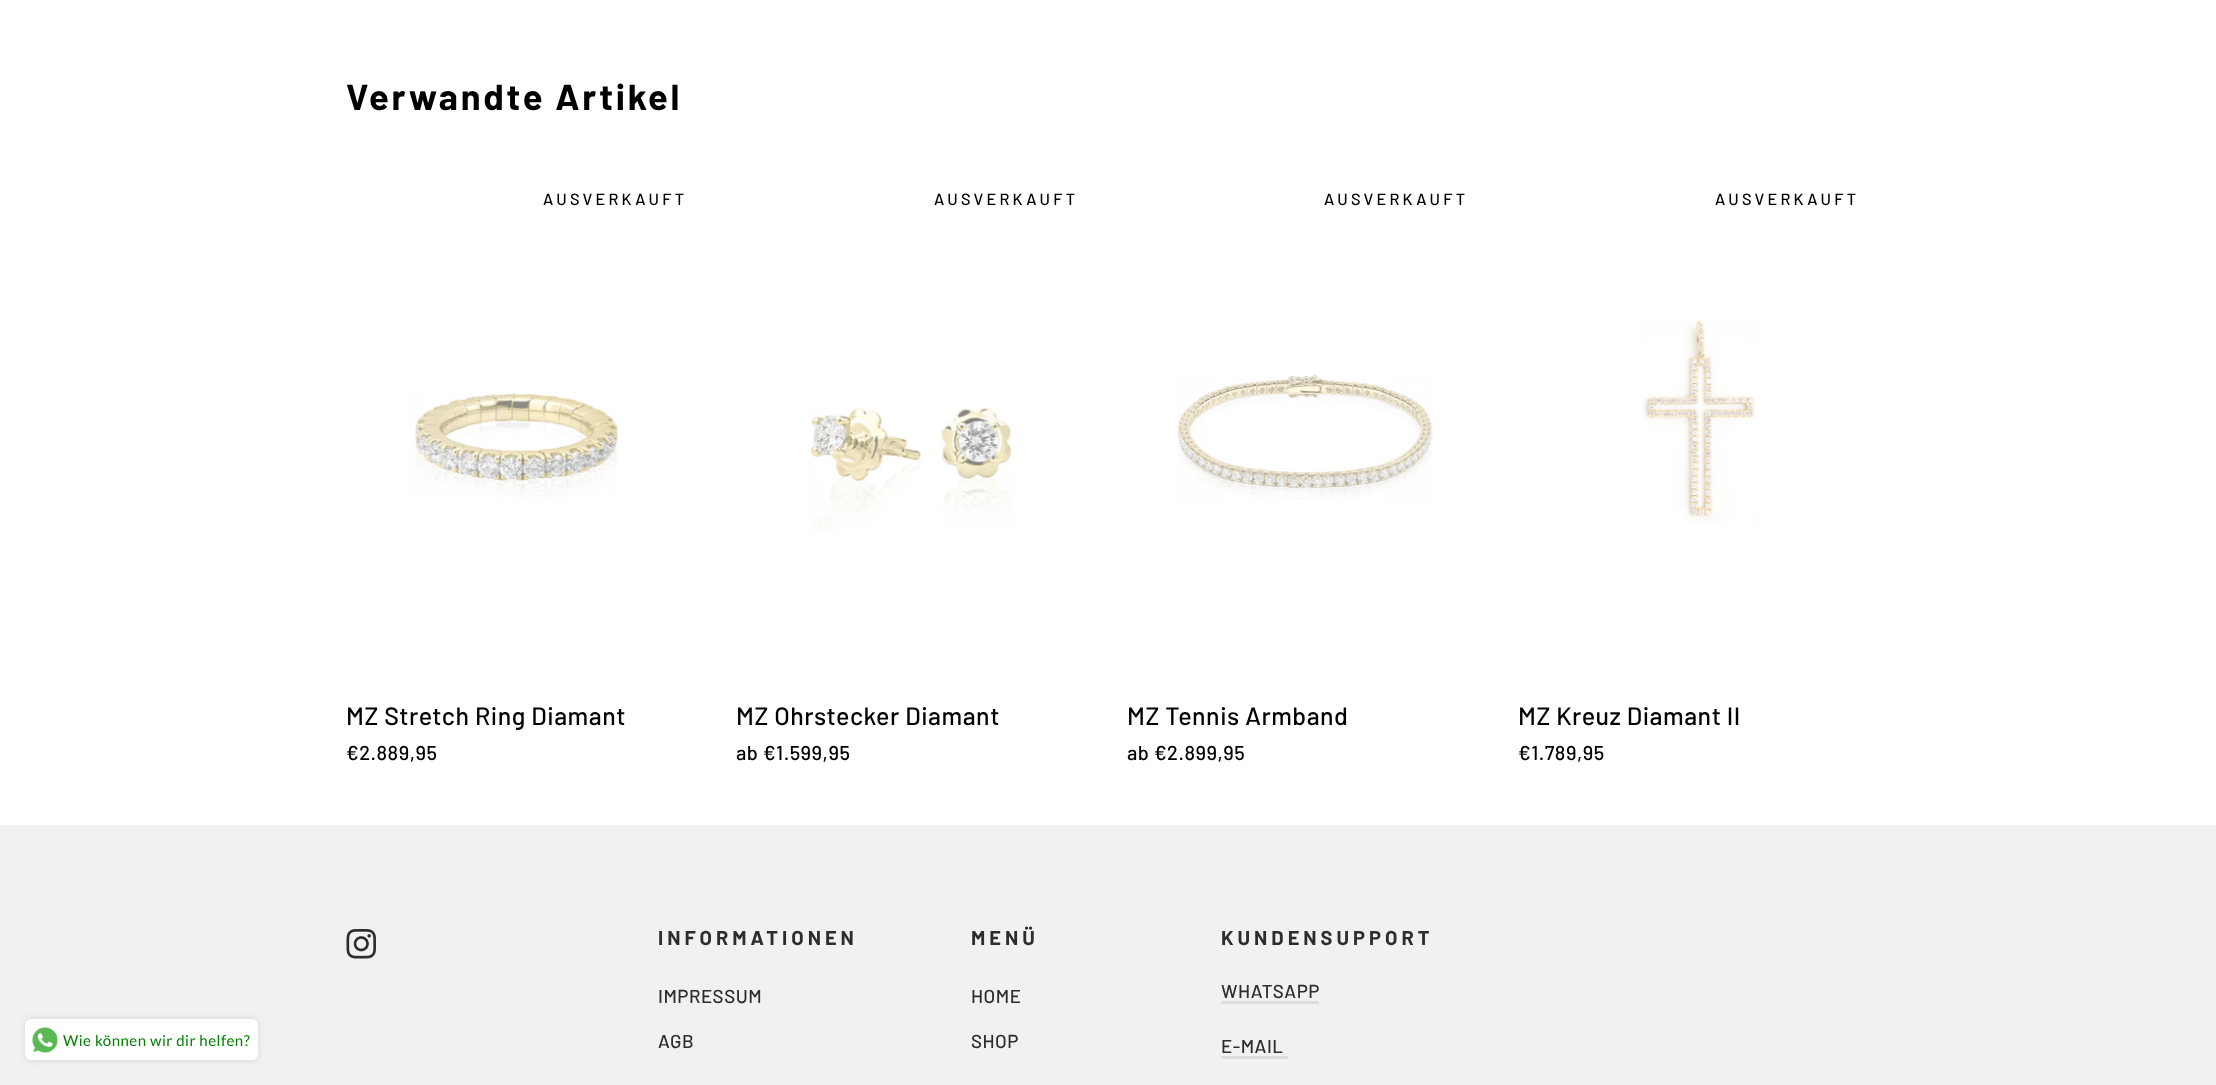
<!DOCTYPE html>
<meta charset="utf-8">
<style>body { margin: 0 } canvas { display: block }</style>
<canvas id="canvas" width="2216" height="1085"></canvas>
<img id="img1" src="img_01.png" hidden>
<img id="img2" src="img_02.png" hidden>
<img id="img3" src="img_03.png" hidden>
<img id="img4" src="img_04.png" hidden>
<img id="img5" src="img_05.png" hidden>
<img id="img6" src="img_06.png" hidden>
<script>
window.onload = function () {
	const canvas = document.getElementById("canvas");
	const ctx = canvas.getContext("2d");
	ctx.miterLimit = 4;
	ctx.fontKerning = "normal";
	function txt(s, x, y) {
		ctx.fillText(s, x, y);
	}
	function fill(x, y, w, h) {
		ctx.fillRect(x, y, w, h);
	}
	function round(x, y, w, h, r) {
		ctx.beginPath();
		ctx.roundRect(x, y, w, h, r);
		ctx.fill();
	}
	function img(id, x, y, w, h) {
		ctx.drawImage(document.getElementById(id), x, y, w, h);
	}

	ctx.fillStyle = "#FFFFFF";
	fill(0, 0, 2216, 1085);
	ctx.fillStyle = "#F0F1F3";
	fill(0, 825, 2216, 260);
	ctx.fillStyle = "#D3D3D3";
	ctx.filter = "blur(3px)";
	ctx.beginPath();
	ctx.roundRect(25, 1019, 233, 41, 6);
	ctx.fill();
	ctx.filter = "none";
	ctx.fillStyle = "#FFFFFF";
	round(25, 1019, 233, 41, 6);
	img("img1", 32, 1027, 26, 26);
	img("img2", 411, 393, 208, 105);
	img("img3", 810, 407, 202, 124);
	img("img4", 1177, 374, 257, 126);
	img("img5", 1642, 319, 115, 207);
	img("img6", 346, 929, 30, 30);
	ctx.fillStyle = "#DDDDDF";
	fill(1221, 1001, 98, 3);
	fill(1221, 1056, 67, 3);
	ctx.letterSpacing = "0.5px";
	ctx.font = "15px Lato";
	ctx.fillStyle = "#008000";
	txt("Wie können wir dir helfen?", 63, 1046);
	ctx.letterSpacing = "2.75px";
	ctx.font = "bold 36.25px Barlow";
	ctx.fillStyle = "#000000";
	txt("Verwandte Artikel", 346, 110);
	ctx.letterSpacing = "3.25px";
	ctx.font = "500 16.25px Barlow";
	txt("AUSVERKAUFT", 543, 205);
	ctx.letterSpacing = "0.5px";
	ctx.font = "500 25px Barlow";
	txt("MZ Stretch Ring Diamant", 346, 725);
	ctx.font = "500 20px Barlow";
	txt("€2.889,95", 346, 760);
	ctx.letterSpacing = "3.25px";
	ctx.font = "500 16.25px Barlow";
	txt("AUSVERKAUFT", 934, 205);
	ctx.letterSpacing = "0.5px";
	ctx.font = "500 25px Barlow";
	txt("MZ Ohrstecker Diamant", 736, 725);
	ctx.font = "500 20px Barlow";
	txt("ab €1.599,95", 736, 760);
	ctx.letterSpacing = "3.25px";
	ctx.font = "500 16.25px Barlow";
	txt("AUSVERKAUFT", 1324, 205);
	ctx.letterSpacing = "0.5px";
	ctx.font = "500 25px Barlow";
	txt("MZ Tennis Armband", 1127, 725);
	ctx.font = "500 20px Barlow";
	txt("ab €2.899,95", 1127, 760);
	ctx.letterSpacing = "3.25px";
	ctx.font = "500 16.25px Barlow";
	txt("AUSVERKAUFT", 1715, 205);
	ctx.letterSpacing = "0.5px";
	ctx.font = "500 25px Barlow";
	txt("MZ Kreuz Diamant II", 1518, 725);
	ctx.font = "500 20px Barlow";
	txt("€1.789,95", 1518, 760);
	ctx.letterSpacing = "4px";
	ctx.font = "bold 20px Barlow";
	ctx.fillStyle = "#2D2D2D";
	txt("INFORMATIONEN", 658, 945);
	ctx.letterSpacing = "0.5px";
	ctx.font = "500 18.75px Barlow";
	txt("IMPRESSUM", 658, 1003);
	txt("AGB", 658, 1048);
	ctx.letterSpacing = "4px";
	ctx.font = "bold 20px Barlow";
	txt("MENÜ", 971, 945);
	ctx.letterSpacing = "0.5px";
	ctx.font = "500 18.75px Barlow";
	txt("HOME", 971, 1003);
	txt("SHOP", 971, 1048);
	ctx.letterSpacing = "4px";
	ctx.font = "bold 20px Barlow";
	txt("KUNDENSUPPORT", 1221, 945);
	ctx.letterSpacing = "0.5px";
	ctx.font = "500 18.75px Barlow";
	txt("WHATSAPP", 1221, 998);
	txt("E-MAIL", 1221, 1053);
};
</script>
